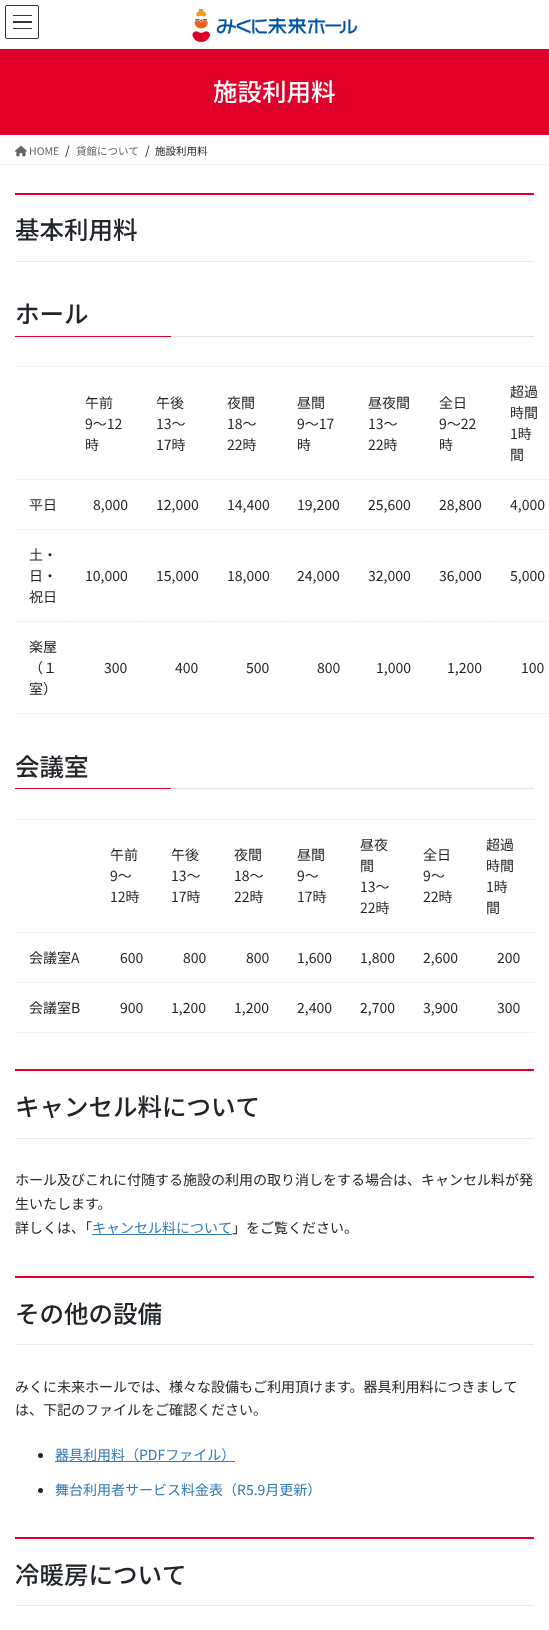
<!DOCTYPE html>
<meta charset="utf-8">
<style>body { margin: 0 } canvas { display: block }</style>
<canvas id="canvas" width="549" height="1630"></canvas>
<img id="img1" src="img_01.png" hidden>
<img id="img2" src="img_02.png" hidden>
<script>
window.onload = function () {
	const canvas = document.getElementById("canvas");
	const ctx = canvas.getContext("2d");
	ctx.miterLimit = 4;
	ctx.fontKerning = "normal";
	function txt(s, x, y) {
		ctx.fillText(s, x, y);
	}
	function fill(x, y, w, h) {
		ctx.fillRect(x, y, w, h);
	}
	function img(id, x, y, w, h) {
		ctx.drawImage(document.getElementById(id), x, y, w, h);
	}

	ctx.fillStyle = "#FFFFFF";
	fill(0, 0, 549, 1630);
	ctx.fillStyle = "#F2F2F2";
	fill(15, 932, 520, 1);
	ctx.fillStyle = "#E6E6E6";
	fill(95, 932, 1, 1);
	fill(157, 932, 1, 1);
	fill(220, 932, 1, 1);
	fill(283, 932, 1, 1);
	fill(346, 932, 1, 1);
	fill(409, 932, 1, 1);
	ctx.fillStyle = "#F2F2F2";
	fill(15, 982, 520, 1);
	ctx.fillStyle = "#E6E6E6";
	fill(95, 982, 1, 1);
	fill(157, 982, 1, 1);
	fill(220, 982, 1, 1);
	fill(283, 982, 1, 1);
	fill(346, 982, 1, 1);
	fill(409, 982, 1, 1);
	ctx.fillStyle = "#F2F2F2";
	fill(15, 1032, 520, 1);
	ctx.fillStyle = "#E6E6E6";
	fill(95, 1032, 1, 1);
	fill(157, 1032, 1, 1);
	fill(220, 1032, 1, 1);
	fill(283, 1032, 1, 1);
	fill(346, 1032, 1, 1);
	fill(409, 1032, 1, 1);
	ctx.fillStyle = "#F2F2F2";
	fill(15, 479, 534, 1);
	ctx.fillStyle = "#E6E6E6";
	fill(71, 479, 1, 1);
	fill(141, 479, 1, 1);
	fill(212, 479, 1, 1);
	fill(283, 479, 1, 1);
	fill(354, 479, 1, 1);
	fill(424, 479, 1, 1);
	ctx.fillStyle = "#F2F2F2";
	fill(15, 529, 534, 1);
	ctx.fillStyle = "#E6E6E6";
	fill(71, 529, 1, 1);
	fill(141, 529, 1, 1);
	fill(212, 529, 1, 1);
	fill(283, 529, 1, 1);
	fill(354, 529, 1, 1);
	fill(424, 529, 1, 1);
	ctx.fillStyle = "#F2F2F2";
	fill(15, 621, 534, 1);
	ctx.fillStyle = "#E6E6E6";
	fill(71, 621, 1, 1);
	fill(141, 621, 1, 1);
	fill(212, 621, 1, 1);
	fill(283, 621, 1, 1);
	fill(354, 621, 1, 1);
	fill(424, 621, 1, 1);
	ctx.fillStyle = "#F2F2F2";
	fill(15, 713, 534, 1);
	ctx.fillStyle = "#E6E6E6";
	fill(71, 713, 1, 1);
	fill(141, 713, 1, 1);
	fill(212, 713, 1, 1);
	fill(283, 713, 1, 1);
	fill(354, 713, 1, 1);
	fill(424, 713, 1, 1);
	ctx.fillStyle = "#E1002A";
	fill(0, 49, 549, 86);
	ctx.save();
	ctx.beginPath();
	ctx.rect(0, 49, 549, 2);
	ctx.clip();
	ctx.fillStyle = "rgba(0, 0, 0, 0.1)";
	ctx.filter = "blur(1.5px)";
	ctx.beginPath();
	ctx.rect(0, 1, 549, 49);
	ctx.fill();
	ctx.filter = "none";
	ctx.restore();
	img("img1", 192, 9, 166, 34);
	ctx.fillStyle = "#333333";
	fill(13, 15, 19, 1);
	fill(13, 21, 19, 2);
	fill(13, 28, 19, 1);
	ctx.beginPath();
	ctx.roundRect(5.5, 5.5, 33, 33, 1.5);
	ctx.strokeStyle = "#333333";
	ctx.stroke();
	ctx.fillStyle = "#F2F2F2";
	fill(0, 164, 549, 1);
	img("img2", 15, 145, 12, 12);
	ctx.fillStyle = "#E1002A";
	fill(15, 193, 519, 2);
	ctx.fillStyle = "#E9E9E9";
	fill(15, 261, 519, 1);
	ctx.fillStyle = "#E6E6E6";
	fill(171, 336, 363, 1);
	ctx.fillStyle = "#E1002A";
	fill(15, 336, 156, 1);
	ctx.fillStyle = "#F2F2F2";
	fill(15, 366, 534, 1);
	ctx.fillStyle = "#E6E6E6";
	fill(495, 479, 1, 1);
	fill(495, 529, 1, 1);
	fill(495, 621, 1, 1);
	fill(495, 713, 1, 1);
	fill(171, 788, 363, 1);
	ctx.fillStyle = "#E1002A";
	fill(15, 788, 156, 1);
	ctx.fillStyle = "#F2F2F2";
	fill(15, 819, 519, 1);
	ctx.fillStyle = "#E6E6E6";
	fill(472, 932, 1, 1);
	fill(472, 982, 1, 1);
	fill(472, 1032, 1, 1);
	ctx.fillStyle = "#E1002A";
	fill(15, 1069, 519, 2);
	ctx.fillStyle = "#E9E9E9";
	fill(15, 1138, 519, 1);
	ctx.fillStyle = "#E1002A";
	fill(15, 1276, 519, 2);
	ctx.fillStyle = "#E9E9E9";
	fill(15, 1344, 519, 1);
	ctx.fillStyle = "#212529";
	ctx.beginPath();
	ctx.arc(40.5, 1455.5, 2.5, 0, Math.PI * 2);
	ctx.fill();
	ctx.fillStyle = "#337AB7";
	fill(55, 1461, 180, 1);
	ctx.fillStyle = "#212529";
	ctx.beginPath();
	ctx.arc(40.5, 1490.5, 2.5, 0, Math.PI * 2);
	ctx.fill();
	ctx.fillStyle = "#E1002A";
	fill(15, 1537, 519, 2);
	ctx.fillStyle = "#E9E9E9";
	fill(15, 1605, 519, 1);
	ctx.font = "500 24.5px Noto Sans JP";
	ctx.fillStyle = "#FFFFFF";
	txt("施設利用料", 213, 101);
	ctx.font = "10.5px Noto Sans JP";
	ctx.fillStyle = "#666666";
	txt("HOME", 29, 155);
	ctx.font = "12px Noto Sans JP";
	ctx.fillStyle = "#212529";
	txt("/", 65, 155);
	ctx.font = "10.5px Noto Sans JP";
	ctx.fillStyle = "#666666";
	txt("貸館について", 76, 155);
	ctx.font = "12px Noto Sans JP";
	ctx.fillStyle = "#212529";
	txt("/", 145, 155);
	ctx.font = "10.5px Noto Sans JP";
	txt("施設利用料", 155, 155);
	ctx.font = "500 24.5px Noto Sans JP";
	txt("基本利用料", 15, 239);
	txt("ホール", 15, 323);
	ctx.font = "14px Noto Sans JP";
	txt("午前", 85, 408);
	txt("9～12", 85, 429);
	txt("時", 85, 450);
	txt("午後", 156, 408);
	txt("13～", 156, 429);
	txt("17時", 156, 450);
	txt("夜間", 227, 408);
	txt("18～", 227, 429);
	txt("22時", 227, 450);
	txt("昼間", 297, 408);
	txt("9～17", 297, 429);
	txt("時", 297, 450);
	txt("昼夜間", 368, 408);
	txt("13～", 368, 429);
	txt("22時", 368, 450);
	txt("全日", 439, 408);
	txt("9～22", 439, 429);
	txt("時", 439, 450);
	txt("超過", 510, 397);
	txt("時間", 510, 418);
	txt("1時", 510, 439);
	txt("間", 510, 460);
	txt("平日", 29, 510);
	txt("8,000", 93, 510);
	txt("12,000", 156, 510);
	txt("14,400", 227, 510);
	txt("19,200", 297, 510);
	txt("25,600", 368, 510);
	txt("28,800", 439, 510);
	txt("4,000", 510, 510);
	txt("土・", 29, 560);
	txt("日・", 29, 581);
	txt("祝日", 29, 602);
	txt("10,000", 85, 581);
	txt("15,000", 156, 581);
	txt("18,000", 227, 581);
	txt("24,000", 297, 581);
	txt("32,000", 368, 581);
	txt("36,000", 439, 581);
	txt("5,000", 510, 581);
	txt("楽屋", 29, 652);
	txt("（１", 29, 673);
	txt("室）", 29, 694);
	txt("300", 104, 673);
	txt("400", 175, 673);
	txt("500", 246, 673);
	txt("800", 317, 673);
	txt("1,000", 376, 673);
	txt("1,200", 447, 673);
	txt("100", 521, 673);
	ctx.font = "500 24.5px Noto Sans JP";
	txt("会議室", 15, 776);
	ctx.font = "14px Noto Sans JP";
	txt("午前", 110, 860);
	txt("9～", 110, 881);
	txt("12時", 110, 902);
	txt("午後", 171, 860);
	txt("13～", 171, 881);
	txt("17時", 171, 902);
	txt("夜間", 234, 860);
	txt("18～", 234, 881);
	txt("22時", 234, 902);
	txt("昼間", 297, 860);
	txt("9～", 297, 881);
	txt("17時", 297, 902);
	txt("昼夜", 360, 850);
	txt("間", 360, 871);
	txt("13～", 360, 892);
	txt("22時", 360, 913);
	txt("全日", 423, 860);
	txt("9～", 423, 881);
	txt("22時", 423, 902);
	txt("超過", 486, 850);
	txt("時間", 486, 871);
	txt("1時", 486, 892);
	txt("間", 486, 913);
	txt("会議室A", 29, 963);
	txt("600", 120, 963);
	txt("800", 183, 963);
	txt("800", 246, 963);
	txt("1,600", 297, 963);
	txt("1,800", 360, 963);
	txt("2,600", 423, 963);
	txt("200", 497, 963);
	txt("会議室B", 29, 1013);
	txt("900", 120, 1013);
	txt("1,200", 171, 1013);
	txt("1,200", 234, 1013);
	txt("2,400", 297, 1013);
	txt("2,700", 360, 1013);
	txt("3,900", 423, 1013);
	txt("300", 497, 1013);
	ctx.font = "500 24.5px Noto Sans JP";
	txt("キャンセル料について", 15, 1116);
	ctx.font = "14px Noto Sans JP";
	txt("ホール及びこれに付随する施設の利用の取り消しをする場合は、キャンセル料が発", 15, 1185);
	txt("生いたします。", 15, 1209);
	txt("詳しくは、「", 15, 1233);
	ctx.fillStyle = "#337AB7";
	fill(92, 1234, 140, 1);
	txt("キャンセル料について", 92, 1233);
	ctx.fillStyle = "#212529";
	txt("」をご覧ください。", 232, 1233);
	ctx.font = "500 24.5px Noto Sans JP";
	txt("その他の設備", 15, 1323);
	ctx.font = "14px Noto Sans JP";
	txt("みくに未来ホールでは、様々な設備もご利用頂けます。器具利用料につきまして", 15, 1392);
	txt("は、下記のファイルをご確認ください。", 15, 1415);
	ctx.fillStyle = "#337AB7";
	txt("器具利用料（PDFファイル）", 55, 1460);
	txt("舞台利用者サービス料金表（R5.9月更新）", 55, 1495);
	ctx.font = "500 24.5px Noto Sans JP";
	ctx.fillStyle = "#212529";
	txt("冷暖房について", 15, 1584);
};
</script>
